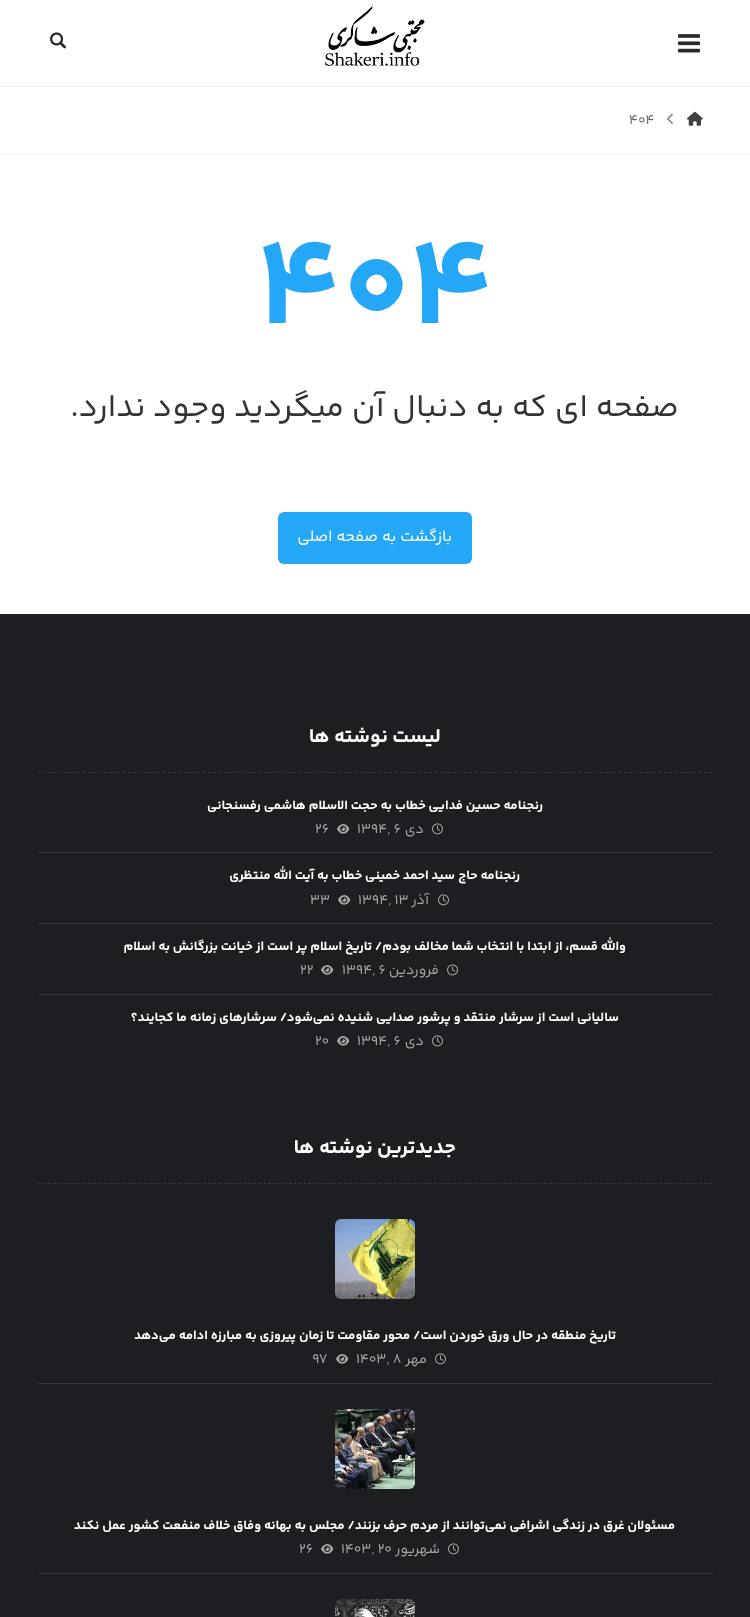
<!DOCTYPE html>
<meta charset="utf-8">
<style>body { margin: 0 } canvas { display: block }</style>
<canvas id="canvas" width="750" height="1617"></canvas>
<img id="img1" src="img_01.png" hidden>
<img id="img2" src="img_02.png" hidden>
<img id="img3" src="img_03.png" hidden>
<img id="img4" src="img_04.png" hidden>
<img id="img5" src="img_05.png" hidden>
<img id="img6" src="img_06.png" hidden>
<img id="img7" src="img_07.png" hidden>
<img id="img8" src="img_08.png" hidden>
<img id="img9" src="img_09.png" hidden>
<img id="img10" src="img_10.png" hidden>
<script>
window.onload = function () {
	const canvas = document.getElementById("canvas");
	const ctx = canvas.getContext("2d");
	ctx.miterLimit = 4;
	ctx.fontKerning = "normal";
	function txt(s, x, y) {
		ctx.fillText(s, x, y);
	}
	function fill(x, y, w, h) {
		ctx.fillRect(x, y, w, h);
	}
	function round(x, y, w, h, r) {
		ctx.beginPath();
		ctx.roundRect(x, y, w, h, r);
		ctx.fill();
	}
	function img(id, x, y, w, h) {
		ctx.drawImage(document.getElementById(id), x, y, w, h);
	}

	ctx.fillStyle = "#FFFFFF";
	fill(0, 0, 750, 1617);
	ctx.fillStyle = "#EAEAEA";
	fill(0, 86, 750, 1);
	img("img1", 678, 34, 22, 19);
	img("img2", 325, 6, 100, 60);
	img("img3", 50, 32, 16, 17);
	ctx.fillStyle = "#F4F4F4";
	fill(0, 154, 750, 1);
	img("img4", 687, 111, 16, 15);
	img("img5", 666, 113, 7, 11);
	ctx.fillStyle = "#25A7F8";
	round(278, 512, 194, 52, 6);
	ctx.fillStyle = "#1D1E21";
	fill(0, 614, 750, 1003);
	ctx.beginPath();
	ctx.moveTo(38, 772.5);
	ctx.lineTo(713, 772.5);
	ctx.strokeStyle = "#39393C";
	ctx.setLineDash([3, 2.01]);
	ctx.stroke();
	ctx.fillStyle = "#39393C";
	fill(38, 852, 675, 1);
	img("img6", 432, 823, 11, 12);
	img("img7", 337, 824, 13, 10);
	fill(38, 923, 675, 1);
	img("img6", 438, 894, 11, 12);
	img("img7", 338, 895, 13, 10);
	fill(38, 994, 675, 1);
	img("img6", 447, 964, 11, 12);
	img("img7", 321, 965, 13, 10);
	img("img6", 432, 1035, 11, 12);
	img("img7", 337, 1036, 13, 10);
	ctx.beginPath();
	ctx.moveTo(38, 1183.5);
	ctx.lineTo(713, 1183.5);
	ctx.stroke();
	fill(38, 1383, 675, 1);
	img("img8", 335, 1219, 80, 80);
	img("img6", 435, 1353, 11, 12);
	img("img7", 336, 1354, 13, 10);
	fill(38, 1573, 675, 1);
	img("img9", 335, 1409, 80, 80);
	img("img6", 448, 1543, 11, 12);
	img("img7", 321, 1544, 13, 10);
	img("img10", 335, 1599, 80, 18);
	ctx.font = "14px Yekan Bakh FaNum";
	ctx.fillStyle = "#686868";
	txt("۴۰۴", 629, 124);
	ctx.font = "bold 128px Yekan Bakh FaNum";
	ctx.fillStyle = "#25A7F8";
	txt("۴۰۴", 257, 323);
	ctx.direction = "rtl";
	ctx.font = "32px Yekan Bakh FaNum";
	ctx.fillStyle = "#333333";
	txt("صفحه ای که به دنبال آن میگردید وجود ندارد.", 679, 416);
	ctx.font = "16px Yekan Bakh FaNum";
	ctx.fillStyle = "#FFFFFF";
	txt("بازگشت به صفحه اصلی", 452, 541);
	ctx.font = "bold 20px Yekan Bakh FaNum";
	txt("لیست نوشته ها", 441, 742);
	ctx.font = "bold 13px Yekan Bakh FaNum";
	txt("رنجنامه حسین فدایی خطاب به حجت الاسلام هاشمی رفسنجانی", 543, 809);
	ctx.font = "14px Yekan Bakh FaNum";
	ctx.fillStyle = "#A5A5A6";
	txt("دی", 424, 833);
	ctx.direction = "ltr";
	txt("۱۳۹۴, ۶", 357, 833);
	txt("۲۶", 315, 833);
	ctx.direction = "rtl";
	ctx.font = "bold 13px Yekan Bakh FaNum";
	ctx.fillStyle = "#FFFFFF";
	txt("رنجنامه حاج سید احمد خمینی خطاب به آیت الله منتظری", 520, 879);
	ctx.font = "14px Yekan Bakh FaNum";
	ctx.fillStyle = "#A5A5A6";
	txt("آذر", 429, 904);
	ctx.direction = "ltr";
	txt("۱۳۹۴, ۱۳", 358, 904);
	txt("۳۳", 310, 904);
	ctx.direction = "rtl";
	ctx.font = "bold 13px Yekan Bakh FaNum";
	ctx.fillStyle = "#FFFFFF";
	txt("والله قسم، از ابتدا با انتخاب شما مخالف بودم/ تاریخ اسلام پر است از خیانت بزرگانش به اسلام", 626, 950);
	ctx.font = "14px Yekan Bakh FaNum";
	ctx.fillStyle = "#A5A5A6";
	txt("فروردین", 439, 974);
	ctx.direction = "ltr";
	txt("۱۳۹۴, ۶", 342, 974);
	txt("۲۲", 300, 974);
	ctx.direction = "rtl";
	ctx.font = "bold 13px Yekan Bakh FaNum";
	ctx.fillStyle = "#FFFFFF";
	txt("سالیانی است از سرشار منتقد و پرشور صدایی شنیده نمی‌شود/ سرشار‌های زمانه ما کجایند؟", 619, 1021);
	ctx.font = "14px Yekan Bakh FaNum";
	ctx.fillStyle = "#A5A5A6";
	txt("دی", 424, 1045);
	ctx.direction = "ltr";
	txt("۱۳۹۴, ۶", 357, 1045);
	txt("۲۰", 315, 1045);
	ctx.direction = "rtl";
	ctx.font = "bold 20px Yekan Bakh FaNum";
	ctx.fillStyle = "#FFFFFF";
	txt("جدیدترین نوشته ها", 456, 1153);
	ctx.font = "bold 13px Yekan Bakh FaNum";
	txt("تاریخ منطقه در حال ورق خوردن است/ محور مقاومت تا زمان پیروزی به مبارزه ادامه می‌دهد", 616, 1339);
	ctx.font = "14px Yekan Bakh FaNum";
	ctx.fillStyle = "#A5A5A6";
	txt("مهر", 427, 1363);
	ctx.direction = "ltr";
	txt("۱۴۰۳, ۸", 356, 1363);
	txt("۹۷", 312, 1363);
	ctx.direction = "rtl";
	ctx.font = "bold 13px Yekan Bakh FaNum";
	ctx.fillStyle = "#FFFFFF";
	txt("مسئولان غرق در زندگی اشرافی نمی‌توانند از مردم حرف بزنند/ مجلس به بهانه وفاق خلاف منفعت کشور عمل نکند", 675, 1529);
	ctx.font = "14px Yekan Bakh FaNum";
	ctx.fillStyle = "#A5A5A6";
	txt("شهریور", 440, 1553);
	ctx.direction = "ltr";
	txt("۱۴۰۳, ۲۰", 341, 1553);
	txt("۲۶", 299, 1553);
};
</script>
